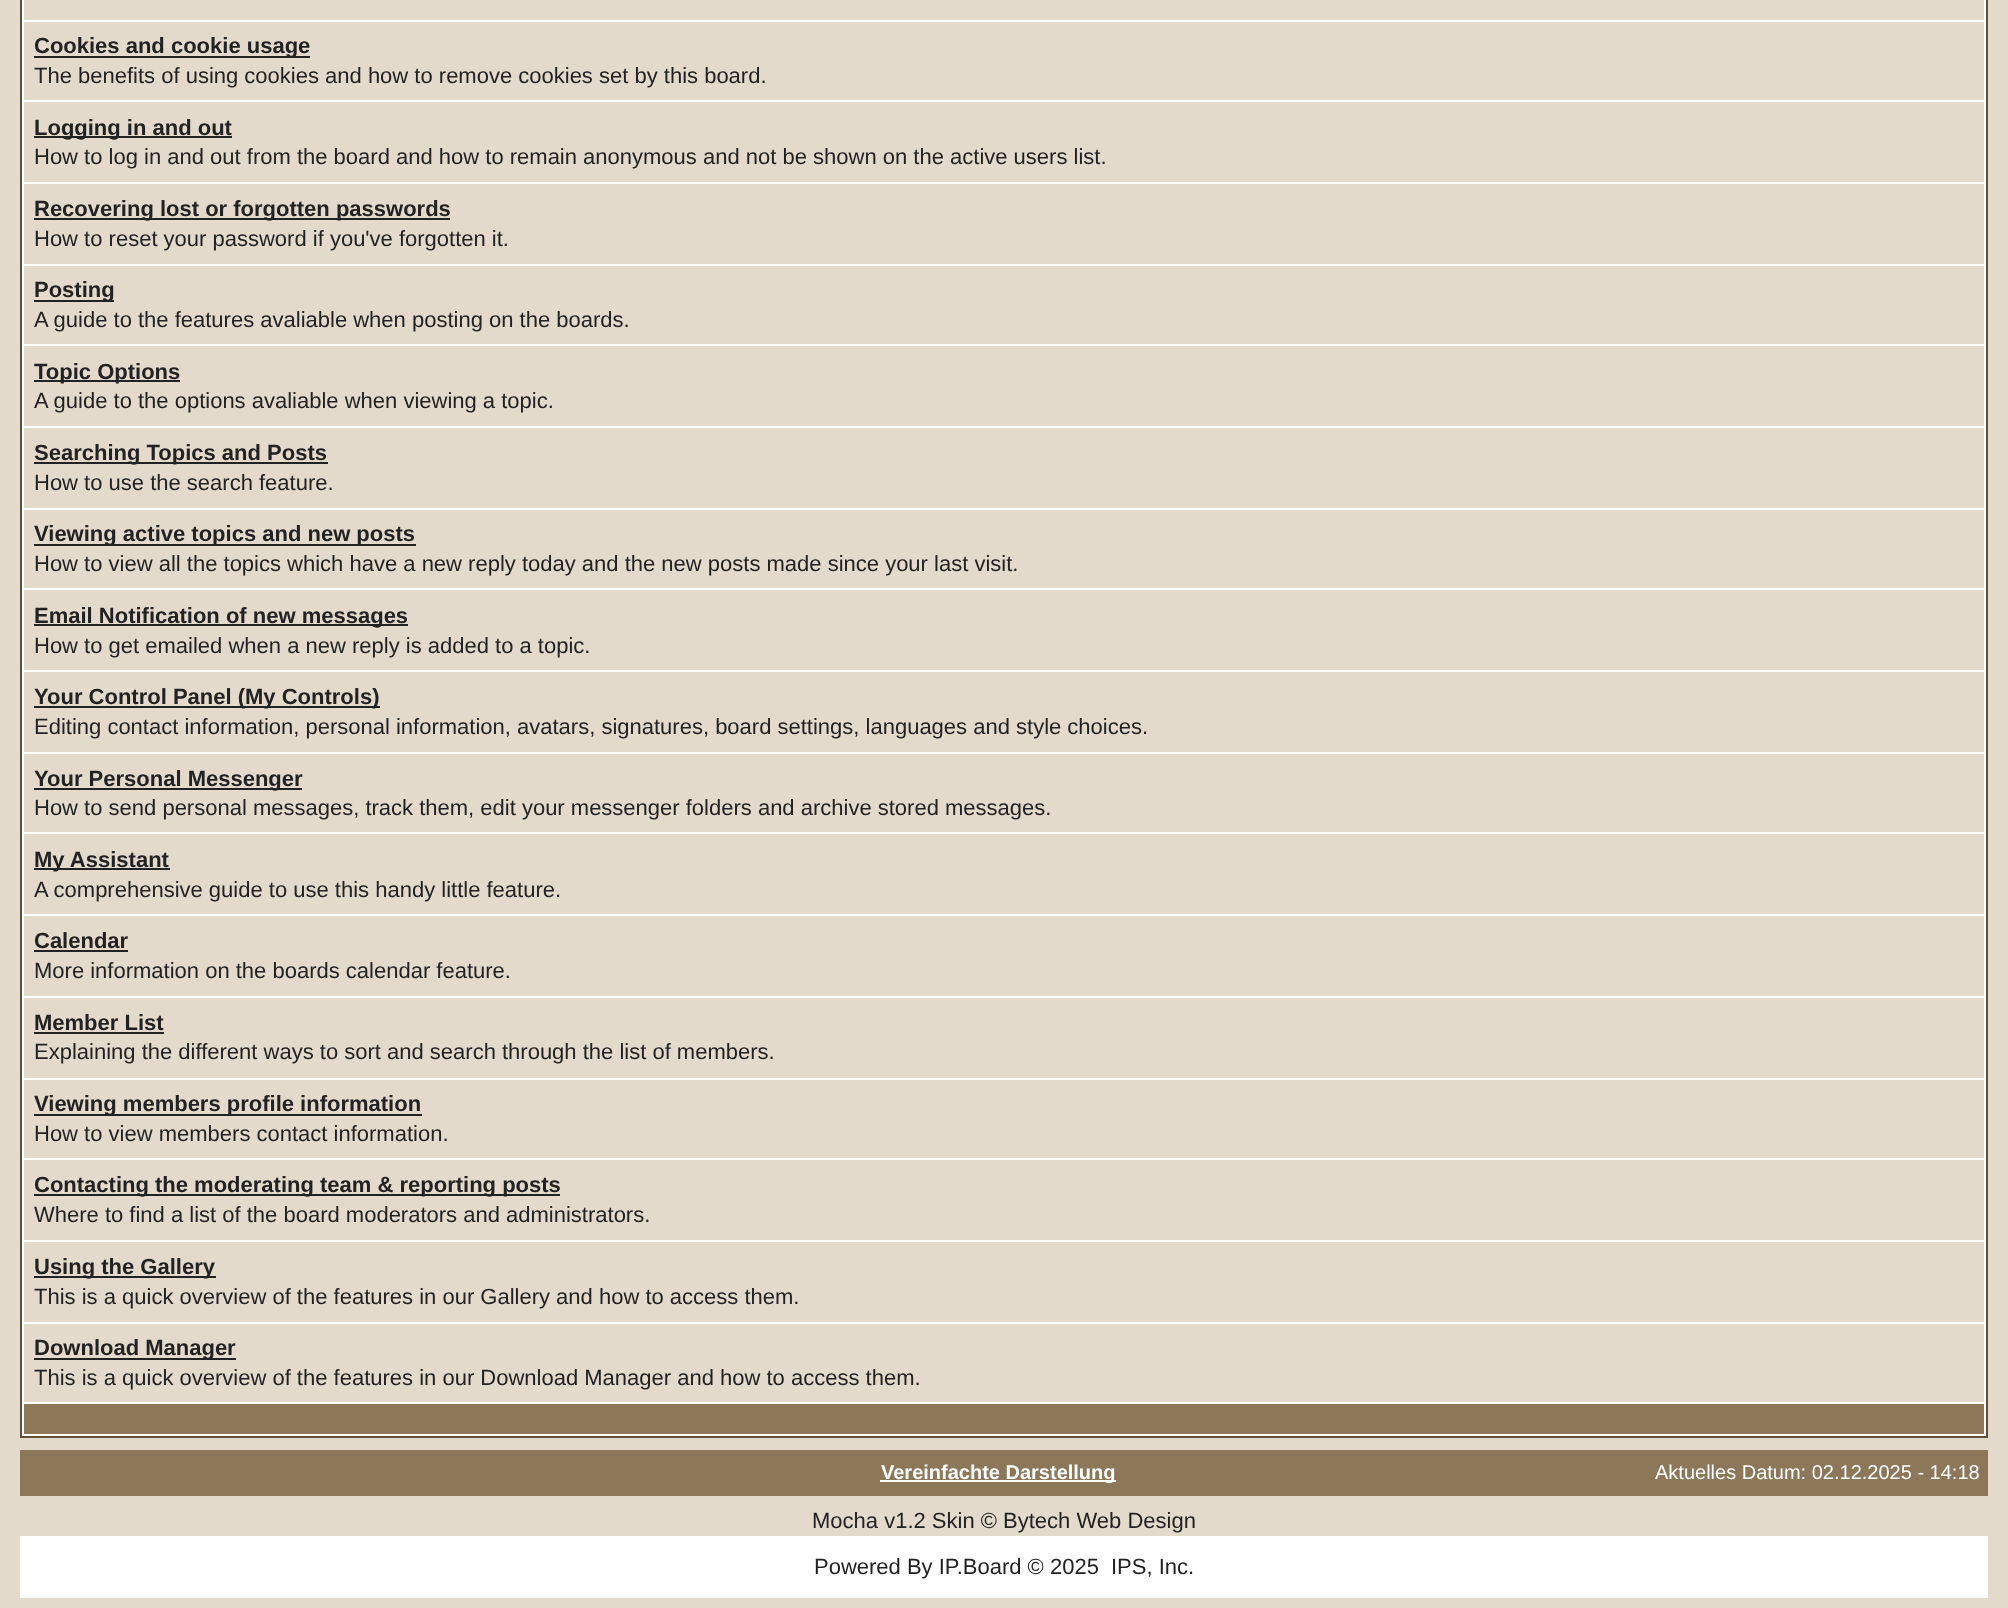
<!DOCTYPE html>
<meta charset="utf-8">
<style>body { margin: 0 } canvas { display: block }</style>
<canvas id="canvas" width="2008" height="1608"></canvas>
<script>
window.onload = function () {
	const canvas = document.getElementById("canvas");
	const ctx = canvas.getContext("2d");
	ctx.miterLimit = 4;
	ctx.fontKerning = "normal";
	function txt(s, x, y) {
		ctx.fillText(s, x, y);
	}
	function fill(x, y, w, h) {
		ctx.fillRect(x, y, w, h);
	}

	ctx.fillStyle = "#E3DACC";
	fill(0, 0, 2008, 1608);
	ctx.fillStyle = "#FFFFFF";
	ctx.beginPath();
	ctx.rect(21, -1, 1966, 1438);
	ctx.fill();
	ctx.strokeStyle = "#635239";
	ctx.lineWidth = 2;
	ctx.stroke();
	ctx.fillStyle = "#E3DACC";
	fill(24, 0, 1960, 20);
	fill(24, 22, 1960, 78);
	ctx.fillStyle = "#222222";
	fill(34, 56, 276, 2);
	ctx.fillStyle = "#E3DACC";
	fill(24, 102, 1960, 80);
	ctx.fillStyle = "#222222";
	fill(34, 136, 198, 2);
	ctx.fillStyle = "#E3DACC";
	fill(24, 184, 1960, 80);
	ctx.fillStyle = "#222222";
	fill(34, 218, 416, 2);
	ctx.fillStyle = "#E3DACC";
	fill(24, 266, 1960, 78);
	ctx.fillStyle = "#222222";
	fill(34, 300, 80, 2);
	ctx.fillStyle = "#E3DACC";
	fill(24, 346, 1960, 80);
	ctx.fillStyle = "#222222";
	fill(34, 380, 146, 2);
	ctx.fillStyle = "#E3DACC";
	fill(24, 428, 1960, 80);
	ctx.fillStyle = "#222222";
	fill(34, 462, 294, 2);
	ctx.fillStyle = "#E3DACC";
	fill(24, 510, 1960, 78);
	ctx.fillStyle = "#222222";
	fill(34, 544, 382, 2);
	ctx.fillStyle = "#E3DACC";
	fill(24, 590, 1960, 80);
	ctx.fillStyle = "#222222";
	fill(34, 624, 374, 2);
	ctx.fillStyle = "#E3DACC";
	fill(24, 672, 1960, 80);
	ctx.fillStyle = "#222222";
	fill(34, 706, 346, 2);
	ctx.fillStyle = "#E3DACC";
	fill(24, 754, 1960, 78);
	ctx.fillStyle = "#222222";
	fill(34, 788, 268, 2);
	ctx.fillStyle = "#E3DACC";
	fill(24, 834, 1960, 80);
	ctx.fillStyle = "#222222";
	fill(34, 868, 136, 2);
	ctx.fillStyle = "#E3DACC";
	fill(24, 916, 1960, 80);
	ctx.fillStyle = "#222222";
	fill(34, 950, 94, 2);
	ctx.fillStyle = "#E3DACC";
	fill(24, 998, 1960, 80);
	ctx.fillStyle = "#222222";
	fill(34, 1032, 130, 2);
	ctx.fillStyle = "#E3DACC";
	fill(24, 1080, 1960, 78);
	ctx.fillStyle = "#222222";
	fill(34, 1114, 388, 2);
	ctx.fillStyle = "#E3DACC";
	fill(24, 1160, 1960, 80);
	ctx.fillStyle = "#222222";
	fill(34, 1194, 526, 2);
	ctx.fillStyle = "#E3DACC";
	fill(24, 1242, 1960, 80);
	ctx.fillStyle = "#222222";
	fill(34, 1276, 182, 2);
	ctx.fillStyle = "#E3DACC";
	fill(24, 1324, 1960, 78);
	ctx.fillStyle = "#222222";
	fill(34, 1358, 202, 2);
	ctx.fillStyle = "#8C7758";
	fill(24, 1404, 1960, 30);
	fill(20, 1450, 1968, 46);
	ctx.fillStyle = "#FFFFFF";
	fill(880, 1480, 236, 2);
	fill(20, 1536, 1968, 62);
	ctx.font = "bold 22px Liberation Sans";
	ctx.fillStyle = "#222222";
	txt("Cookies and cookie usage", 34, 53);
	ctx.font = "22px Liberation Sans";
	txt("The benefits of using cookies and how to remove cookies set by this board.", 34, 83);
	ctx.font = "bold 22px Liberation Sans";
	txt("Logging in and out", 34, 135);
	ctx.font = "22px Liberation Sans";
	txt("How to log in and out from the board and how to remain anonymous and not be shown on the active users list.", 34, 164);
	ctx.font = "bold 22px Liberation Sans";
	txt("Recovering lost or forgotten passwords", 34, 216);
	ctx.font = "22px Liberation Sans";
	txt("How to reset your password if you've forgotten it.", 34, 246);
	ctx.font = "bold 22px Liberation Sans";
	txt("Posting", 34, 297);
	ctx.font = "22px Liberation Sans";
	txt("A guide to the features avaliable when posting on the boards.", 34, 327);
	ctx.font = "bold 22px Liberation Sans";
	txt("Topic Options", 34, 379);
	ctx.font = "22px Liberation Sans";
	txt("A guide to the options avaliable when viewing a topic.", 34, 408);
	ctx.font = "bold 22px Liberation Sans";
	txt("Searching Topics and Posts", 34, 460);
	ctx.font = "22px Liberation Sans";
	txt("How to use the search feature.", 34, 490);
	ctx.font = "bold 22px Liberation Sans";
	txt("Viewing active topics and new posts", 34, 541);
	ctx.font = "22px Liberation Sans";
	txt("How to view all the topics which have a new reply today and the new posts made since your last visit.", 34, 571);
	ctx.font = "bold 22px Liberation Sans";
	txt("Email Notification of new messages", 34, 623);
	ctx.font = "22px Liberation Sans";
	txt("How to get emailed when a new reply is added to a topic.", 34, 653);
	ctx.font = "bold 22px Liberation Sans";
	txt("Your Control Panel (My Controls)", 34, 704);
	ctx.font = "22px Liberation Sans";
	txt("Editing contact information, personal information, avatars, signatures, board settings, languages and style choices.", 34, 734);
	ctx.font = "bold 22px Liberation Sans";
	txt("Your Personal Messenger", 34, 786);
	ctx.font = "22px Liberation Sans";
	txt("How to send personal messages, track them, edit your messenger folders and archive stored messages.", 34, 815);
	ctx.font = "bold 22px Liberation Sans";
	txt("My Assistant", 34, 867);
	ctx.font = "22px Liberation Sans";
	txt("A comprehensive guide to use this handy little feature.", 34, 897);
	ctx.font = "bold 22px Liberation Sans";
	txt("Calendar", 34, 948);
	ctx.font = "22px Liberation Sans";
	txt("More information on the boards calendar feature.", 34, 978);
	ctx.font = "bold 22px Liberation Sans";
	txt("Member List", 34, 1030);
	ctx.font = "22px Liberation Sans";
	txt("Explaining the different ways to sort and search through the list of members.", 34, 1059);
	ctx.font = "bold 22px Liberation Sans";
	txt("Viewing members profile information", 34, 1111);
	ctx.font = "22px Liberation Sans";
	txt("How to view members contact information.", 34, 1141);
	ctx.font = "bold 22px Liberation Sans";
	txt("Contacting the moderating team & reporting posts", 34, 1192);
	ctx.font = "22px Liberation Sans";
	txt("Where to find a list of the board moderators and administrators.", 34, 1222);
	ctx.font = "bold 22px Liberation Sans";
	txt("Using the Gallery", 34, 1274);
	ctx.font = "22px Liberation Sans";
	txt("This is a quick overview of the features in our Gallery and how to access them.", 34, 1304);
	ctx.font = "bold 22px Liberation Sans";
	txt("Download Manager", 34, 1355);
	ctx.font = "22px Liberation Sans";
	txt("This is a quick overview of the features in our Download Manager and how to access them.", 34, 1385);
	ctx.font = "bold 20px Liberation Sans";
	ctx.fillStyle = "#FFFFFF";
	txt("Vereinfachte Darstellung", 881, 1479);
	ctx.font = "20px Liberation Sans";
	txt("Aktuelles Datum: 02.12.2025 - 14:18", 1655, 1479);
	ctx.font = "22px Liberation Sans";
	ctx.fillStyle = "#222222";
	txt("Mocha v1.2 Skin © Bytech Web Design", 812, 1528);
	txt("Powered By IP.Board © 2025", 814, 1574);
	txt("IPS, Inc.", 1111, 1574);
};
</script>
